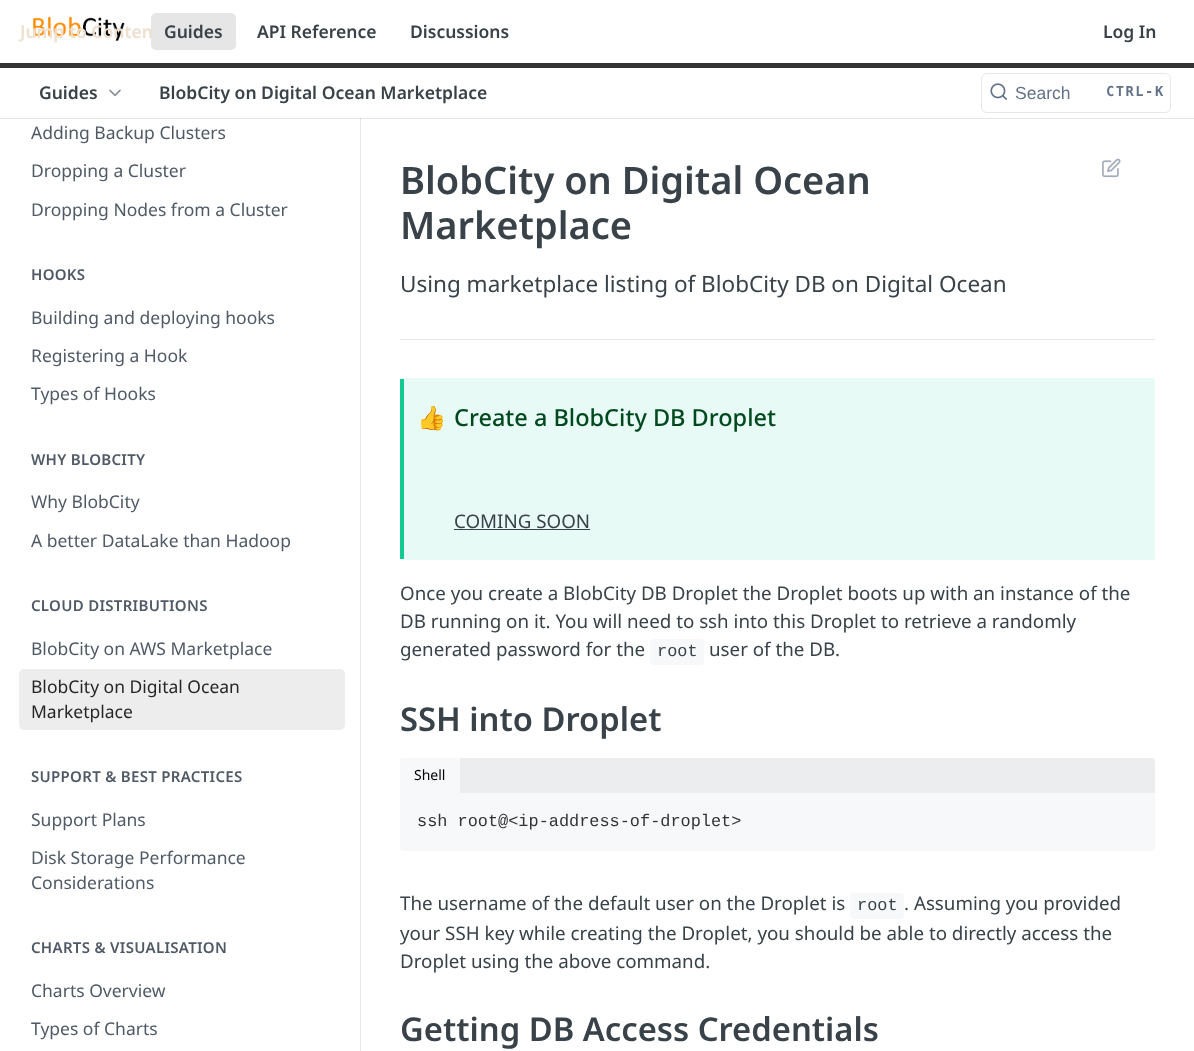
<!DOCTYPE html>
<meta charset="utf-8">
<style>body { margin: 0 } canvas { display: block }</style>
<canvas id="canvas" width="1194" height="1051"></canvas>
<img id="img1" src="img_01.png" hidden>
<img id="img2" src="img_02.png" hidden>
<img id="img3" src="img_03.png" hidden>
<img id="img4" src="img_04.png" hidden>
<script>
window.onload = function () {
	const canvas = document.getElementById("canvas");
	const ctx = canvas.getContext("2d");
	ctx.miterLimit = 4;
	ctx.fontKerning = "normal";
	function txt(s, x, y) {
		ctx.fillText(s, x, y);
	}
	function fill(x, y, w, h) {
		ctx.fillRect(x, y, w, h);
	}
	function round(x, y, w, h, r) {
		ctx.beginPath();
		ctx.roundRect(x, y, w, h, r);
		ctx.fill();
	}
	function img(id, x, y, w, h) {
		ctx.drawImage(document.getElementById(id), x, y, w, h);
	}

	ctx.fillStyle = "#FFFFFF";
	fill(0, 0, 1194, 1051);
	ctx.fillStyle = "#E6E6E6";
	ctx.beginPath();
	ctx.moveTo(1, 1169);
	ctx.lineTo(361, 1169);
	ctx.lineTo(361, 118);
	ctx.lineTo(360, 118);
	ctx.lineTo(360, 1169);
	ctx.closePath();
	ctx.fill();
	ctx.fillStyle = "rgba(0, 0, 0, 0.1)";
	fill(0, 118, 1194, 1);
	ctx.fillStyle = "#333333";
	fill(0, 63, 1194, 5);
	img("img1", 33, 16, 92, 25);
	ctx.fillStyle = "#E6E6E6";
	round(151, 13, 85, 37, 5);
	img("img2", 109, 89, 12, 8);
	ctx.beginPath();
	ctx.roundRect(981.5, 73.5, 189, 39, 5.5);
	ctx.strokeStyle = "#E6E6E6";
	ctx.stroke();
	ctx.fillStyle = "#FFFFFF";
	round(983, 74, 187, 37, 5);
	img("img3", 990, 83, 17, 17);
	ctx.fillStyle = "#EDEDED";
	round(19, 669, 326, 61, 5);
	ctx.fillStyle = "#E6E6E6";
	fill(400, 339, 755, 1);
	img("img4", 1102, 158, 19, 20);
	ctx.fillStyle = "#E8FAF5";
	round(400, 378, 755, 182, 2.5);
	ctx.fillStyle = "#12CA93";
	fill(400, 379, 4, 180);
	ctx.fillStyle = "#384248";
	fill(454, 529, 136, 1);
	ctx.fillStyle = "#F6F8FA";
	round(650, 639, 54, 26, 4);
	ctx.fillStyle = "#EBEDEF";
	ctx.beginPath();
	ctx.roundRect(400, 758, 755, 35, [4, 4, 0, 0]);
	ctx.fill();
	ctx.fillStyle = "#F6F8FA";
	ctx.beginPath();
	ctx.roundRect(400, 758, 60, 35, [4, 0, 0, 0]);
	ctx.fill();
	ctx.beginPath();
	ctx.roundRect(400, 793, 755, 58, [0, 0, 4, 4]);
	ctx.fill();
	round(850, 893, 54, 26, 4);
	ctx.font = "600 17.5px Noto Sans";
	ctx.fillStyle = "#EEDFCE";
	txt("Jump to Conten", 20, 38);
	ctx.fillStyle = "#384248";
	txt("Guides", 164, 38);
	txt("API Reference", 257, 38);
	txt("Discussions", 410, 38);
	txt("Log In", 1103, 38);
	txt("Guides", 39, 99);
	txt("BlobCity on Digital Ocean Marketplace", 159, 99);
	ctx.font = "17.5px Liberation Sans";
	ctx.fillStyle = "#637288";
	txt("Search", 1015, 99);
	ctx.letterSpacing = "1.5px";
	ctx.font = "bold 13.75px DejaVu Sans Mono";
	txt("CTRL-K", 1106, 96);
	ctx.letterSpacing = "0px";
	ctx.font = "17.5px Noto Sans";
	ctx.fillStyle = "#4F5A66";
	txt("Adding Backup Clusters", 31, 139);
	txt("Dropping a Cluster", 31, 177);
	txt("Dropping Nodes from a Cluster", 31, 216);
	ctx.letterSpacing = "0.3px";
	ctx.font = "600 15px Noto Sans";
	txt("HOOKS", 31, 280);
	ctx.letterSpacing = "0px";
	ctx.font = "17.5px Noto Sans";
	txt("Building and deploying hooks", 31, 324);
	txt("Registering a Hook", 31, 362);
	txt("Types of Hooks", 31, 400);
	ctx.letterSpacing = "0.3px";
	ctx.font = "600 15px Noto Sans";
	txt("WHY BLOBCITY", 31, 465);
	ctx.letterSpacing = "0px";
	ctx.font = "17.5px Noto Sans";
	txt("Why BlobCity", 31, 508);
	txt("A better DataLake than Hadoop", 31, 547);
	ctx.letterSpacing = "0.3px";
	ctx.font = "600 15px Noto Sans";
	txt("CLOUD DISTRIBUTIONS", 31, 611);
	ctx.letterSpacing = "0px";
	ctx.font = "17.5px Noto Sans";
	txt("BlobCity on AWS Marketplace", 31, 655);
	ctx.fillStyle = "#262626";
	txt("BlobCity on Digital Ocean", 31, 693);
	txt("Marketplace", 31, 718);
	ctx.letterSpacing = "0.3px";
	ctx.font = "600 15px Noto Sans";
	ctx.fillStyle = "#4F5A66";
	txt("SUPPORT & BEST PRACTICES", 31, 782);
	ctx.letterSpacing = "0px";
	ctx.font = "17.5px Noto Sans";
	txt("Support Plans", 31, 826);
	txt("Disk Storage Performance", 31, 864);
	txt("Considerations", 31, 889);
	ctx.letterSpacing = "0.3px";
	ctx.font = "600 15px Noto Sans";
	txt("CHARTS & VISUALISATION", 31, 953);
	ctx.letterSpacing = "0px";
	ctx.font = "17.5px Noto Sans";
	txt("Charts Overview", 31, 997);
	txt("Types of Charts", 31, 1035);
	ctx.font = "600 38px Noto Sans";
	ctx.fillStyle = "#384248";
	txt("BlobCity on Digital Ocean", 400, 194);
	txt("Marketplace", 400, 239);
	ctx.font = "22.5px Noto Sans";
	txt("Using marketplace listing of BlobCity DB on Digital Ocean", 400, 292);
	ctx.font = "23.5px Noto Color Emoji";
	ctx.fillStyle = "#00491F";
	txt("👍", 417, 426);
	ctx.font = "500 23.5px Noto Sans";
	txt("Create a BlobCity DB Droplet", 454, 426);
	ctx.font = "18.75px Noto Sans";
	ctx.fillStyle = "#384248";
	txt("COMING SOON", 454, 528);
	txt("Once you create a BlobCity DB Droplet the Droplet boots up with an instance of the", 400, 600);
	txt("DB running on it. You will need to ssh into this Droplet to retrieve a randomly", 400, 628);
	txt("generated password for the", 400, 656);
	ctx.font = "16.9px Liberation Mono";
	txt("root", 657, 656);
	ctx.font = "18.75px Noto Sans";
	txt("user of the DB.", 709, 656);
	ctx.font = "600 32.75px Noto Sans";
	txt("SSH into Droplet", 400, 731);
	ctx.font = "14px Noto Sans";
	ctx.fillStyle = "#000000";
	txt("Shell", 414, 780);
	ctx.font = "16.9px Liberation Mono";
	ctx.fillStyle = "#333333";
	txt("ssh root@<ip-address-of-droplet>", 417, 826);
	ctx.font = "18.75px Noto Sans";
	ctx.fillStyle = "#384248";
	txt("The username of the default user on the Droplet is", 400, 910);
	ctx.font = "16.9px Liberation Mono";
	txt("root", 857, 910);
	ctx.font = "18.75px Noto Sans";
	txt(". Assuming you provided", 904, 910);
	txt("your SSH key while creating the Droplet, you should be able to directly access the", 400, 940);
	txt("Droplet using the above command.", 400, 968);
	ctx.font = "600 32.75px Noto Sans";
	txt("Getting DB Access Credentials", 400, 1041);
};
</script>
